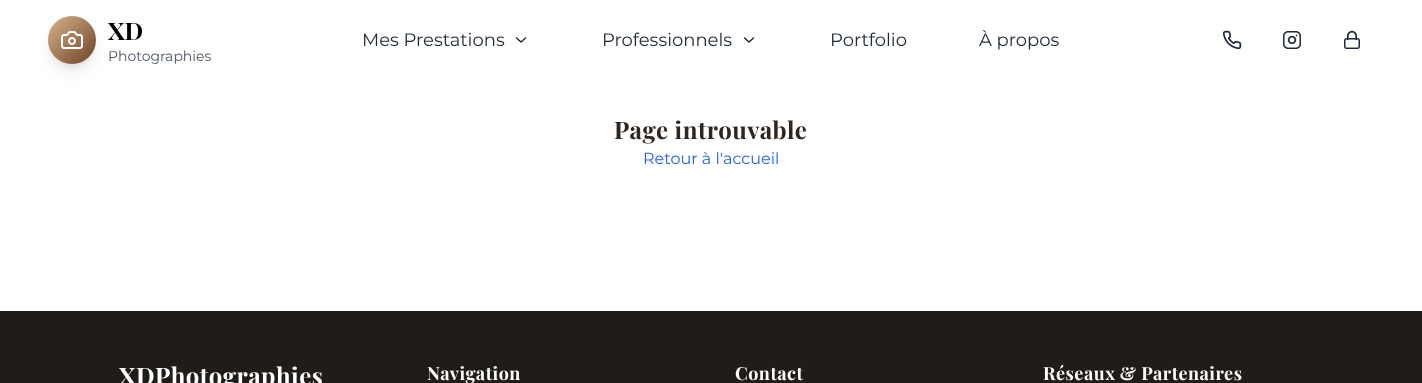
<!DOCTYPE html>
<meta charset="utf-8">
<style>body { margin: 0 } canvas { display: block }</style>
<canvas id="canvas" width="1422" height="383"></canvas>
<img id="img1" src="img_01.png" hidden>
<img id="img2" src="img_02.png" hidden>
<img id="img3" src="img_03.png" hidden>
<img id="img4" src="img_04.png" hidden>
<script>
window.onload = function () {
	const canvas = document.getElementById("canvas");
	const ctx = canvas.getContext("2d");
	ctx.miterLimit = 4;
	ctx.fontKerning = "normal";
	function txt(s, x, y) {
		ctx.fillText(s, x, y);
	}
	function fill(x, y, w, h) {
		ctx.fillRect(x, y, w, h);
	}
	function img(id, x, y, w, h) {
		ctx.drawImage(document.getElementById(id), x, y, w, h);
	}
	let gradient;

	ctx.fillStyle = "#FFFFFF";
	fill(0, 0, 1422, 383);
	ctx.fillStyle = "rgba(0, 0, 0, 0.1)";
	ctx.filter = "blur(3px)";
	ctx.beginPath();
	ctx.roundRect(52, 24, 40, 40, 20);
	ctx.fill();
	ctx.filter = "none";
	ctx.filter = "blur(7.5px)";
	ctx.beginPath();
	ctx.roundRect(51, 29, 42, 42, 21);
	ctx.fill();
	ctx.filter = "none";
	gradient = ctx.createLinearGradient(48, 16, 96, 64);
	gradient.addColorStop(0, "#D9B38C");
	gradient.addColorStop(1, "#6B4226");
	ctx.fillStyle = gradient;
	ctx.beginPath();
	ctx.arc(72, 40, 24, 0, Math.PI * 2);
	ctx.fill();
	img("img1", 61, 31, 22, 18);
	ctx.beginPath();
	ctx.moveTo(516.5, 38);
	ctx.lineTo(521, 42);
	ctx.lineTo(525.5, 38);
	ctx.strokeStyle = "#1F2937";
	ctx.lineWidth = 1.5;
	ctx.lineCap = "round";
	ctx.lineJoin = "round";
	ctx.stroke();
	ctx.beginPath();
	ctx.moveTo(744.5, 38);
	ctx.lineTo(749, 42);
	ctx.lineTo(753.5, 38);
	ctx.stroke();
	img("img2", 1222, 30, 20, 20);
	img("img3", 1283, 31, 18, 18);
	img("img4", 1344, 30, 16, 19);
	ctx.fillStyle = "#1F1C1A";
	fill(0, 311, 1422, 72);
	ctx.font = "bold 24px Playfair Display";
	ctx.fillStyle = "#000000";
	txt("XD", 108, 40);
	ctx.font = "14px Montserrat";
	ctx.fillStyle = "#4B5563";
	txt("Photographies", 108, 61);
	ctx.font = "18px Montserrat";
	ctx.fillStyle = "#1F2937";
	txt("Mes Prestations", 362, 46);
	txt("Professionnels", 602, 46);
	txt("Portfolio", 830, 46);
	txt("À propos", 979, 46);
	ctx.letterSpacing = "0.5px";
	ctx.font = "bold 24px Playfair Display";
	ctx.fillStyle = "#2F251E";
	txt("Page introuvable", 614, 139);
	ctx.letterSpacing = "0px";
	ctx.font = "16px Montserrat";
	ctx.fillStyle = "#2563EB";
	txt("Retour à l'accueil", 643, 164);
	ctx.letterSpacing = "0.5px";
	ctx.font = "bold 24px Playfair Display";
	ctx.fillStyle = "#FFFFFF";
	txt("XDPhotographies", 119, 385);
	ctx.font = "bold 18px Playfair Display";
	txt("Navigation", 427, 380);
	txt("Contact", 735, 380);
	txt("Réseaux & Partenaires", 1043, 380);
};
</script>
